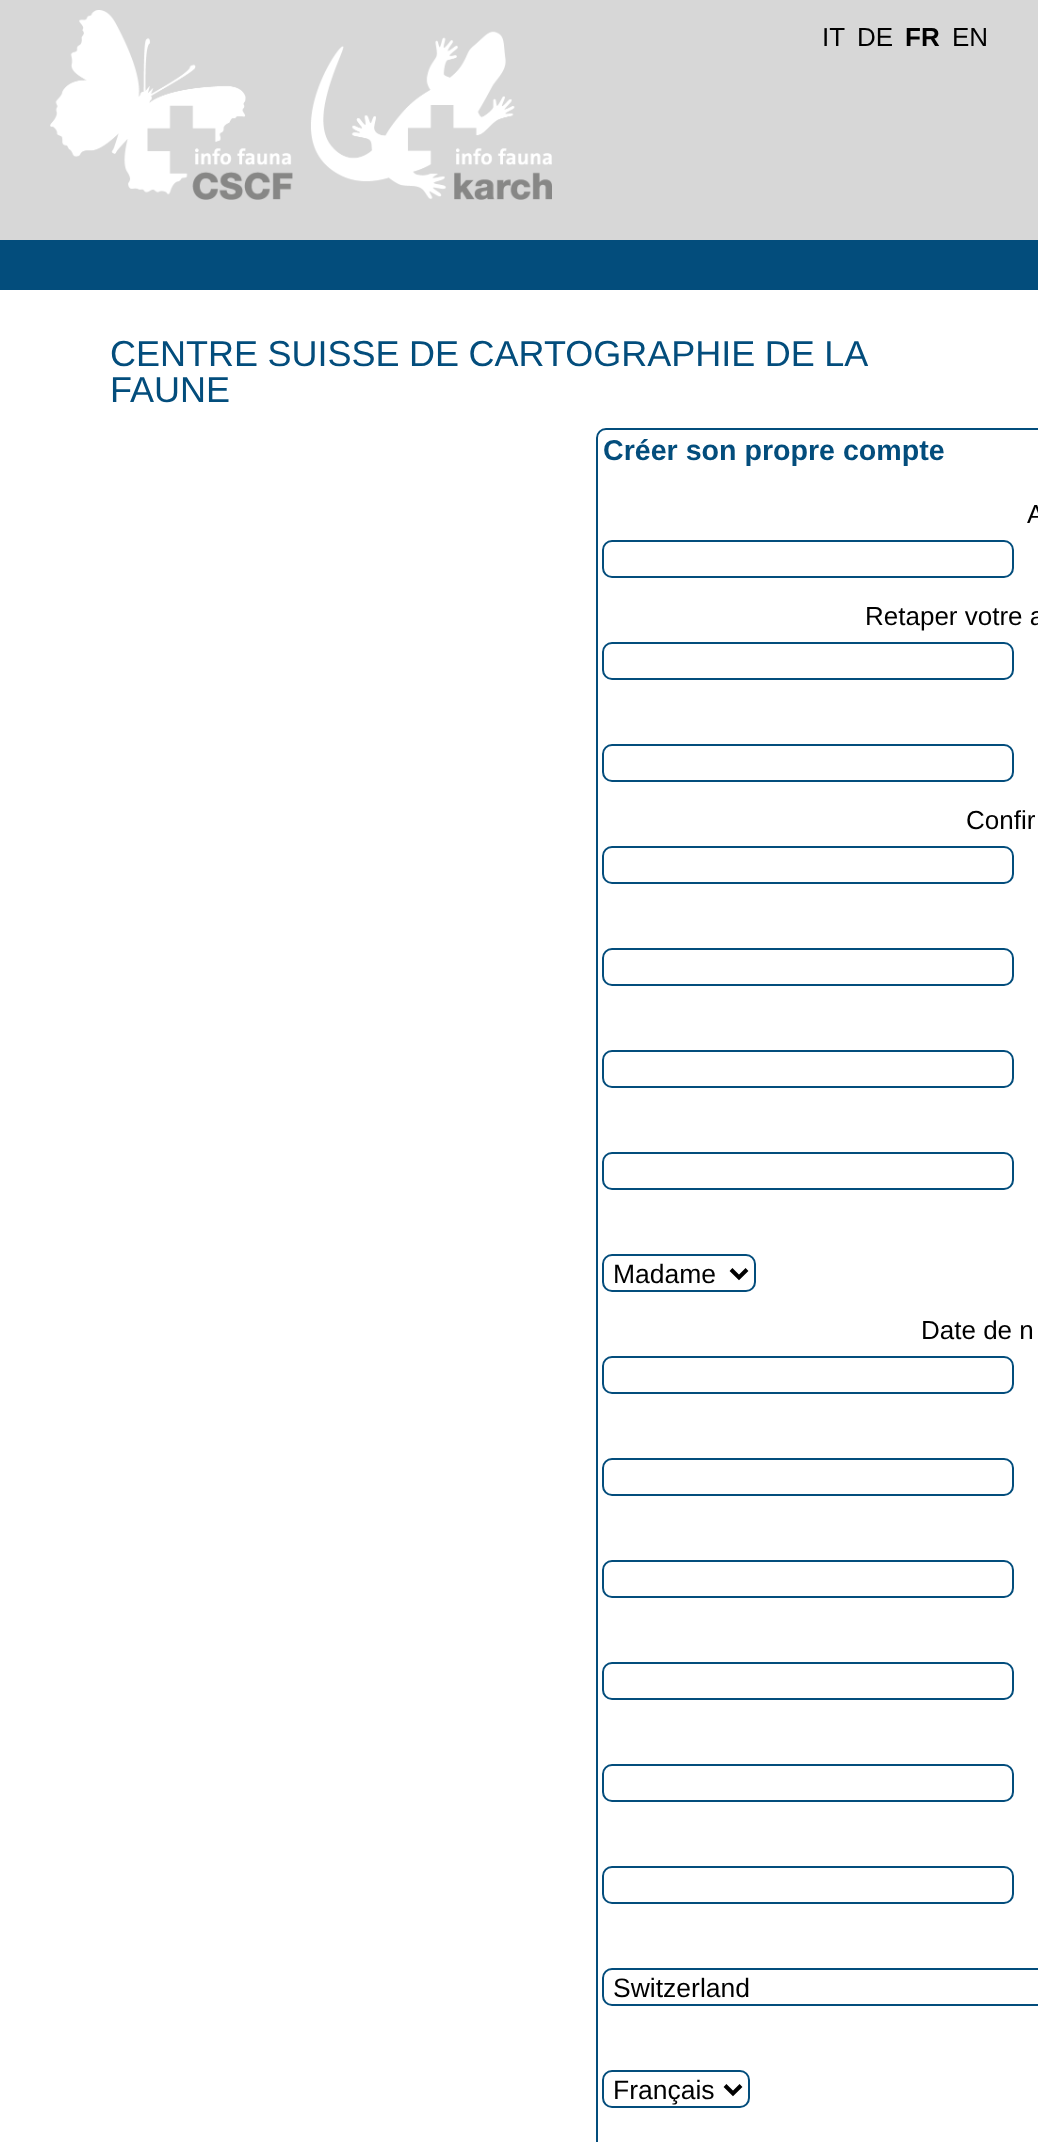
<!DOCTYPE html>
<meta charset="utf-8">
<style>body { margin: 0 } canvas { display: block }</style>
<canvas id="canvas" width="1038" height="2142"></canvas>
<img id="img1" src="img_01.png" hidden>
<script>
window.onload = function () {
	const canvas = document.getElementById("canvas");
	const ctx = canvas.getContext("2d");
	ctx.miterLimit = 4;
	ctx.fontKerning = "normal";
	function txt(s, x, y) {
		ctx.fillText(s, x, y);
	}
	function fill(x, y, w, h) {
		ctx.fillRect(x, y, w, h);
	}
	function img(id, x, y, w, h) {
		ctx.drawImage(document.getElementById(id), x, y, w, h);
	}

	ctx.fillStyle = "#FFFFFF";
	fill(0, 0, 1038, 2142);
	ctx.fillStyle = "#D7D7D7";
	fill(0, 0, 1038, 240);
	img("img1", 50, 10, 502, 190);
	ctx.fillStyle = "#034D7C";
	fill(0, 240, 1038, 50);
	ctx.beginPath();
	ctx.roundRect(597, 429, 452, 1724, 9);
	ctx.strokeStyle = "#034D7C";
	ctx.lineWidth = 2;
	ctx.stroke();
	ctx.beginPath();
	ctx.roundRect(603, 541, 410, 36, 9);
	ctx.stroke();
	ctx.beginPath();
	ctx.roundRect(603, 643, 410, 36, 9);
	ctx.stroke();
	ctx.beginPath();
	ctx.roundRect(603, 745, 410, 36, 9);
	ctx.stroke();
	ctx.beginPath();
	ctx.roundRect(603, 847, 410, 36, 9);
	ctx.stroke();
	ctx.beginPath();
	ctx.roundRect(603, 949, 410, 36, 9);
	ctx.stroke();
	ctx.beginPath();
	ctx.roundRect(603, 1051, 410, 36, 9);
	ctx.stroke();
	ctx.beginPath();
	ctx.roundRect(603, 1153, 410, 36, 9);
	ctx.stroke();
	ctx.beginPath();
	ctx.roundRect(603, 1255, 152, 36, 9);
	ctx.stroke();
	ctx.beginPath();
	ctx.moveTo(731, 1269.5);
	ctx.lineTo(739, 1277.5);
	ctx.lineTo(747, 1269.5);
	ctx.strokeStyle = "#000000";
	ctx.lineWidth = 4;
	ctx.stroke();
	ctx.beginPath();
	ctx.roundRect(603, 1357, 410, 36, 9);
	ctx.strokeStyle = "#034D7C";
	ctx.lineWidth = 2;
	ctx.stroke();
	ctx.beginPath();
	ctx.roundRect(603, 1459, 410, 36, 9);
	ctx.stroke();
	ctx.beginPath();
	ctx.roundRect(603, 1561, 410, 36, 9);
	ctx.stroke();
	ctx.beginPath();
	ctx.roundRect(603, 1663, 410, 36, 9);
	ctx.stroke();
	ctx.beginPath();
	ctx.roundRect(603, 1765, 410, 36, 9);
	ctx.stroke();
	ctx.beginPath();
	ctx.roundRect(603, 1867, 410, 36, 9);
	ctx.stroke();
	ctx.beginPath();
	ctx.roundRect(603, 1969, 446, 36, 9);
	ctx.stroke();
	ctx.beginPath();
	ctx.roundRect(603, 2071, 146, 36, 9);
	ctx.stroke();
	ctx.beginPath();
	ctx.moveTo(725, 2085.5);
	ctx.lineTo(733, 2093.5);
	ctx.lineTo(741, 2085.5);
	ctx.strokeStyle = "#000000";
	ctx.lineWidth = 4;
	ctx.stroke();
	ctx.font = "26px Liberation Sans";
	ctx.fillStyle = "#000000";
	txt("IT", 822, 46);
	txt("DE", 857, 46);
	ctx.font = "bold 26px Liberation Sans";
	txt("FR", 905, 46);
	ctx.font = "26px Liberation Sans";
	txt("EN", 952, 46);
	ctx.wordSpacing = "-0.5px";
	ctx.font = "36px Liberation Sans";
	ctx.fillStyle = "#034D7C";
	txt("CENTRE SUISSE DE CARTOGRAPHIE DE LA", 110, 366);
	ctx.wordSpacing = "0px";
	txt("FAUNE", 110, 402);
	ctx.font = "bold 28.6px Liberation Sans";
	txt("Créer son propre compte", 603, 460);
	ctx.font = "26px Liberation Sans";
	ctx.fillStyle = "#000000";
	txt("A", 1027, 523);
	txt("Retaper votre a", 865, 625);
	txt("Confir", 966, 829);
	ctx.font = "26.5px Liberation Sans";
	txt("Madame", 613, 1283);
	ctx.font = "26px Liberation Sans";
	txt("Date de n", 921, 1339);
	ctx.font = "26.5px Liberation Sans";
	txt("Switzerland", 613, 1997);
	txt("Français", 613, 2099);
};
</script>
